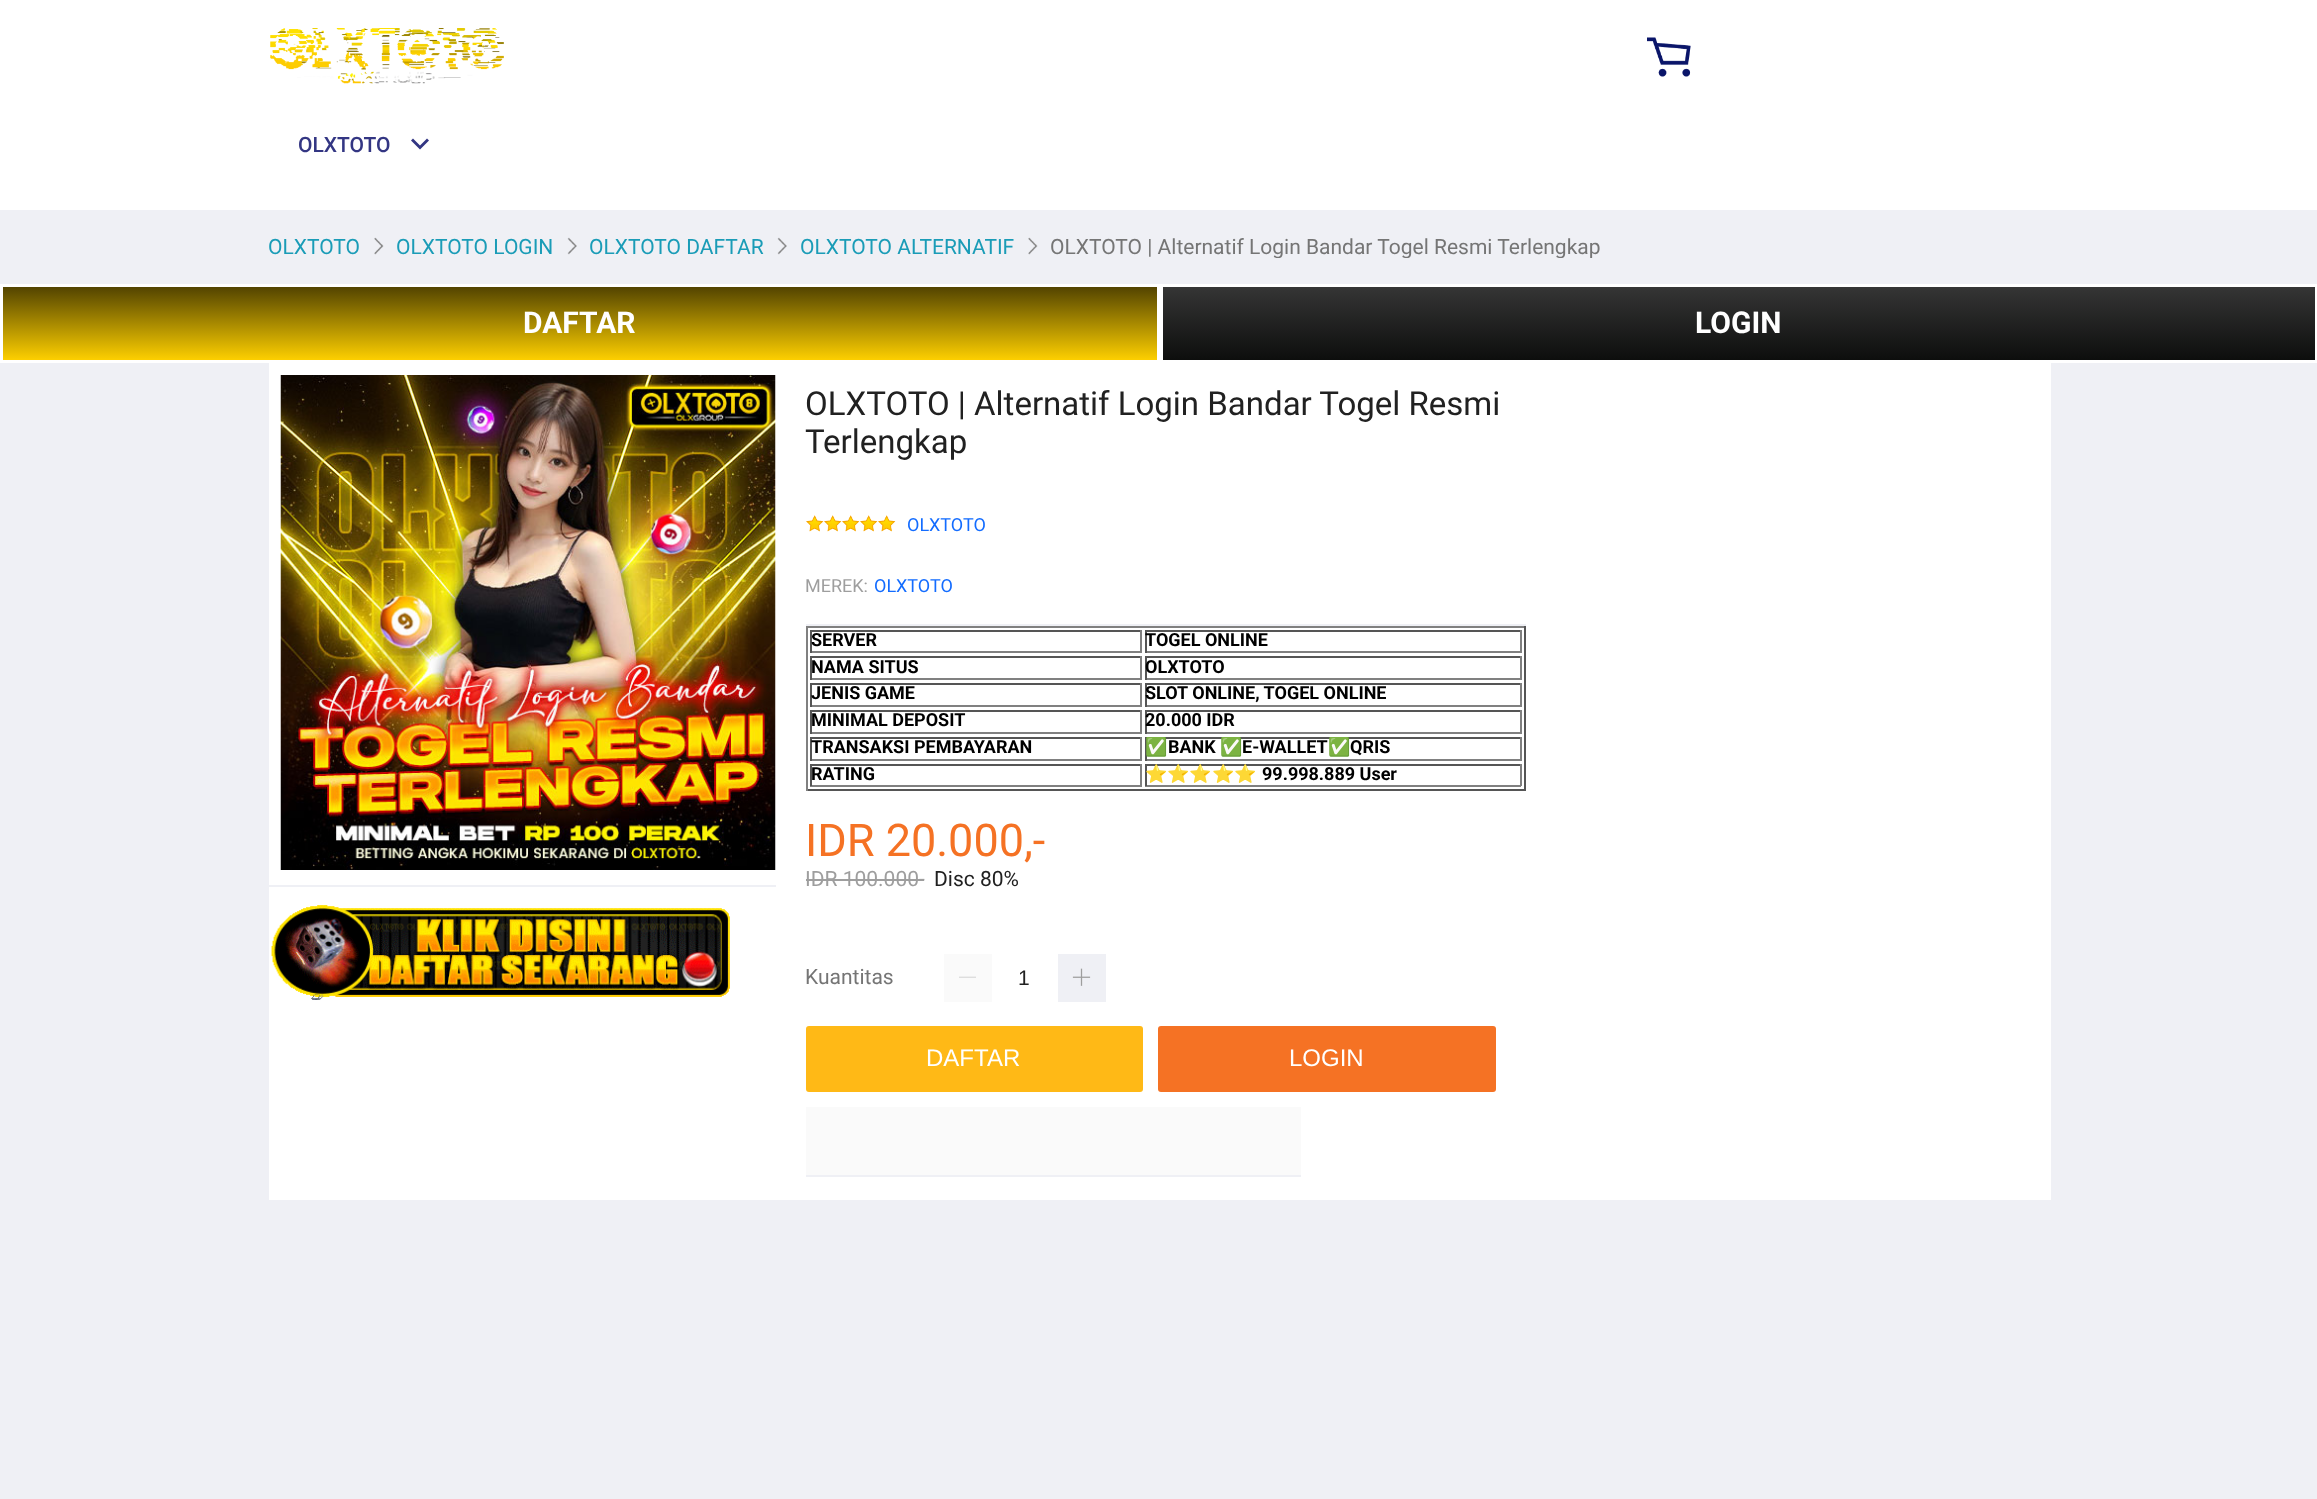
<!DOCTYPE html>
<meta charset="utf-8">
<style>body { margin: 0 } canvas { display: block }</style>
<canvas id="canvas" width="2317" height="1499"></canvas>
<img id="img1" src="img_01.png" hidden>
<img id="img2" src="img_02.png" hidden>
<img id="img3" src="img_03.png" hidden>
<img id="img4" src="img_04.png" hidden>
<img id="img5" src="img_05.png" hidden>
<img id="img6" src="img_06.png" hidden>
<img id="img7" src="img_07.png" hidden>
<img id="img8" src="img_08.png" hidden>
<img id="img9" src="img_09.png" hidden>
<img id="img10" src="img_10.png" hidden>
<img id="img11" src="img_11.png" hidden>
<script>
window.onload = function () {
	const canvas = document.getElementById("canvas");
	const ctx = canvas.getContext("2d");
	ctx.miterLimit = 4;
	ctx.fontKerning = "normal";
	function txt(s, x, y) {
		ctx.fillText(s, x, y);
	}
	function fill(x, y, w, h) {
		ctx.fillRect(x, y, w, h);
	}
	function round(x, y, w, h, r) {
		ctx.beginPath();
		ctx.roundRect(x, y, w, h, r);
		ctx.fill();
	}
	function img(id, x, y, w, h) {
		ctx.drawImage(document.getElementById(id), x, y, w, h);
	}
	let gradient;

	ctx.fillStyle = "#EFF0F5";
	fill(0, 0, 2317, 1499);
	ctx.fillStyle = "#FFFFFF";
	fill(0, 0, 2317, 210);
	img("img1", 270, 28, 234, 56);
	img("img2", 1647, 37, 44, 40);
	ctx.fillStyle = "#333683";
	ctx.beginPath();
	ctx.moveTo(427, 138.5);
	ctx.lineTo(429, 140.5);
	ctx.lineTo(420, 149.5);
	ctx.lineTo(411, 140.5);
	ctx.lineTo(413, 138.5);
	ctx.lineTo(420, 145.5);
	ctx.closePath();
	ctx.fill();
	img("img3", 374, 237, 10, 18);
	img("img4", 567, 237, 10, 18);
	img("img5", 777, 237, 10, 18);
	img("img6", 1028, 237, 10, 18);
	gradient = ctx.createLinearGradient(580, 360, 580, 287);
	gradient.addColorStop(0, "#FDCF00");
	gradient.addColorStop(1, "#534400");
	ctx.fillStyle = gradient;
	fill(3, 287, 1154, 73);
	ctx.strokeStyle = "#FFFFFF";
	ctx.lineWidth = 3;
	ctx.strokeRect(1.5, 285.5, 1157, 76);
	gradient = ctx.createLinearGradient(1739, 360, 1739, 287);
	gradient.addColorStop(0, "#0D0E0D");
	gradient.addColorStop(1, "#353535");
	ctx.fillStyle = gradient;
	fill(1163, 287, 1152, 73);
	ctx.strokeRect(1161.5, 285.5, 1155, 76);
	ctx.fillStyle = "#FFFFFF";
	fill(269, 363, 1782, 837);
	ctx.fillStyle = "#EFF0F5";
	fill(269, 885, 507, 2);
	img("img7", 280, 375, 496, 495);
	img("img8", 271, 905, 459, 95);
	img("img9", 806, 515, 18, 17);
	img("img9", 824, 515, 18, 17);
	img("img9", 842, 515, 18, 17);
	img("img9", 860, 515, 18, 17);
	img("img9", 878, 515, 18, 17);
	fill(806, 624, 720, 2);
	ctx.fillStyle = "#808080";
	fill(806, 626, 720, 2);
	ctx.fillStyle = "#555555";
	fill(1524, 626, 2, 165);
	fill(806, 789, 720, 2);
	ctx.fillStyle = "#808080";
	fill(806, 626, 2, 165);
	ctx.fillStyle = "#555555";
	fill(810, 630, 332, 2);
	ctx.fillStyle = "#808080";
	fill(1140, 630, 2, 23);
	fill(810, 651, 332, 2);
	ctx.fillStyle = "#555555";
	fill(810, 630, 2, 23);
	fill(1145, 630, 376, 2);
	ctx.fillStyle = "#808080";
	fill(1520, 630, 2, 23);
	fill(1145, 651, 376, 2);
	ctx.fillStyle = "#555555";
	fill(1145, 630, 2, 23);
	fill(810, 656, 332, 2);
	ctx.fillStyle = "#808080";
	fill(1140, 656, 2, 24);
	fill(810, 678, 332, 2);
	ctx.fillStyle = "#555555";
	fill(810, 656, 2, 24);
	fill(1145, 656, 376, 2);
	ctx.fillStyle = "#808080";
	fill(1520, 656, 2, 24);
	fill(1145, 678, 376, 2);
	ctx.fillStyle = "#555555";
	fill(1145, 656, 2, 24);
	fill(810, 683, 332, 2);
	ctx.fillStyle = "#808080";
	fill(1140, 683, 2, 24);
	fill(810, 705, 332, 2);
	ctx.fillStyle = "#555555";
	fill(810, 683, 2, 24);
	fill(1145, 683, 376, 2);
	ctx.fillStyle = "#808080";
	fill(1520, 683, 2, 24);
	fill(1145, 705, 376, 2);
	ctx.fillStyle = "#555555";
	fill(1145, 683, 2, 24);
	fill(810, 710, 332, 2);
	ctx.fillStyle = "#808080";
	fill(1140, 710, 2, 24);
	fill(810, 732, 332, 2);
	ctx.fillStyle = "#555555";
	fill(810, 710, 2, 24);
	fill(1145, 710, 376, 2);
	ctx.fillStyle = "#808080";
	fill(1520, 710, 2, 24);
	fill(1145, 732, 376, 2);
	ctx.fillStyle = "#555555";
	fill(1145, 710, 2, 24);
	fill(810, 737, 332, 2);
	ctx.fillStyle = "#808080";
	fill(1140, 737, 2, 24);
	fill(810, 759, 332, 2);
	ctx.fillStyle = "#555555";
	fill(810, 737, 2, 24);
	fill(1145, 737, 376, 2);
	ctx.fillStyle = "#808080";
	fill(1520, 737, 2, 24);
	fill(1145, 759, 376, 2);
	ctx.fillStyle = "#555555";
	fill(1145, 737, 2, 24);
	fill(810, 764, 332, 2);
	ctx.fillStyle = "#808080";
	fill(1140, 764, 2, 22);
	fill(810, 785, 332, 2);
	ctx.fillStyle = "#555555";
	fill(810, 764, 2, 22);
	fill(1145, 764, 376, 2);
	ctx.fillStyle = "#808080";
	fill(1520, 764, 2, 22);
	fill(1145, 785, 376, 2);
	ctx.fillStyle = "#555555";
	fill(1145, 764, 2, 22);
	ctx.fillStyle = "#9E9E9E";
	fill(806, 879, 118, 2);
	ctx.fillStyle = "#FAFAFA";
	fill(944, 954, 48, 48);
	img("img10", 959, 976, 17, 2);
	ctx.fillStyle = "#EFF0F5";
	fill(1058, 954, 48, 48);
	img("img11", 1072, 968, 19, 18);
	ctx.fillStyle = "#FFB916";
	round(806, 1026, 337, 66, 3);
	ctx.fillStyle = "#F57224";
	round(1158, 1026, 338, 66, 3);
	ctx.fillStyle = "#FAFAFA";
	fill(806, 1107, 495, 68);
	ctx.fillStyle = "#EFF0F5";
	fill(806, 1175, 495, 2);
	ctx.font = "500 21px Roboto";
	ctx.fillStyle = "#333683";
	txt("OLXTOTO", 298, 152);
	ctx.font = "21px Roboto";
	ctx.fillStyle = "#1A9CB7";
	txt("OLXTOTO", 268, 254);
	txt("OLXTOTO LOGIN", 396, 254);
	txt("OLXTOTO DAFTAR", 589, 254);
	txt("OLXTOTO ALTERNATIF", 800, 254);
	ctx.save();
	ctx.beginPath();
	ctx.rect(1044, 234, 563, 24);
	ctx.clip();
	ctx.fillStyle = "#757575";
	txt("OLXTOTO | Alternatif Login Bandar Togel Resmi Terlengkap", 1050, 254);
	ctx.restore();
	ctx.font = "bold 30px Roboto";
	ctx.fillStyle = "#FFFFFF";
	txt("DAFTAR", 523, 333);
	txt("LOGIN", 1695, 333);
	ctx.font = "33px Roboto";
	ctx.fillStyle = "#212121";
	txt("OLXTOTO | Alternatif Login Bandar Togel Resmi", 805, 415);
	txt("Terlengkap", 805, 453);
	ctx.font = "18px Roboto";
	ctx.fillStyle = "#136CFF";
	txt("OLXTOTO", 907, 531);
	ctx.fillStyle = "#9E9E9E";
	txt("MEREK:", 805, 592);
	ctx.fillStyle = "#136CFF";
	txt("OLXTOTO", 874, 592);
	ctx.font = "bold 18px Roboto";
	ctx.fillStyle = "#000000";
	txt("SERVER", 811, 646);
	txt("TOGEL ONLINE", 1145, 646);
	txt("NAMA SITUS", 811, 673);
	txt("OLXTOTO", 1145, 673);
	txt("JENIS GAME", 811, 699);
	txt("SLOT ONLINE, TOGEL ONLINE", 1145, 699);
	txt("MINIMAL DEPOSIT", 811, 726);
	txt("20.000 IDR", 1145, 726);
	txt("TRANSAKSI PEMBAYARAN", 811, 753);
	ctx.font = "bold 18px Noto Color Emoji";
	txt("✅", 1145, 753);
	ctx.font = "bold 18px Roboto";
	txt("BANK", 1168, 753);
	ctx.font = "bold 18px Noto Color Emoji";
	txt("✅", 1220, 753);
	ctx.font = "bold 18px Roboto";
	txt("E-WALLET", 1242, 753);
	ctx.font = "bold 18px Noto Color Emoji";
	txt("✅", 1328, 753);
	ctx.font = "bold 18px Roboto";
	txt("QRIS", 1350, 753);
	txt("RATING", 811, 780);
	ctx.font = "bold 18px Noto Color Emoji";
	txt("⭐⭐⭐⭐⭐", 1145, 780);
	ctx.font = "bold 18px Roboto";
	txt("99.998.889 User", 1262, 780);
	ctx.font = "45px Roboto";
	ctx.fillStyle = "#F57224";
	txt("IDR 20.000,-", 805, 856);
	ctx.font = "21px Roboto";
	ctx.fillStyle = "#9E9E9E";
	txt("IDR 100.000-", 805, 886);
	ctx.fillStyle = "#212121";
	txt("Disc 80%", 934, 886);
	ctx.fillStyle = "#757575";
	txt("Kuantitas", 805, 984);
	ctx.font = "21px Liberation Sans";
	ctx.fillStyle = "#212121";
	txt("1", 1018, 985);
	ctx.font = "24px Liberation Sans";
	ctx.fillStyle = "#FFFFFF";
	txt("DAFTAR", 926, 1066);
	txt("LOGIN", 1289, 1066);
};
</script>
